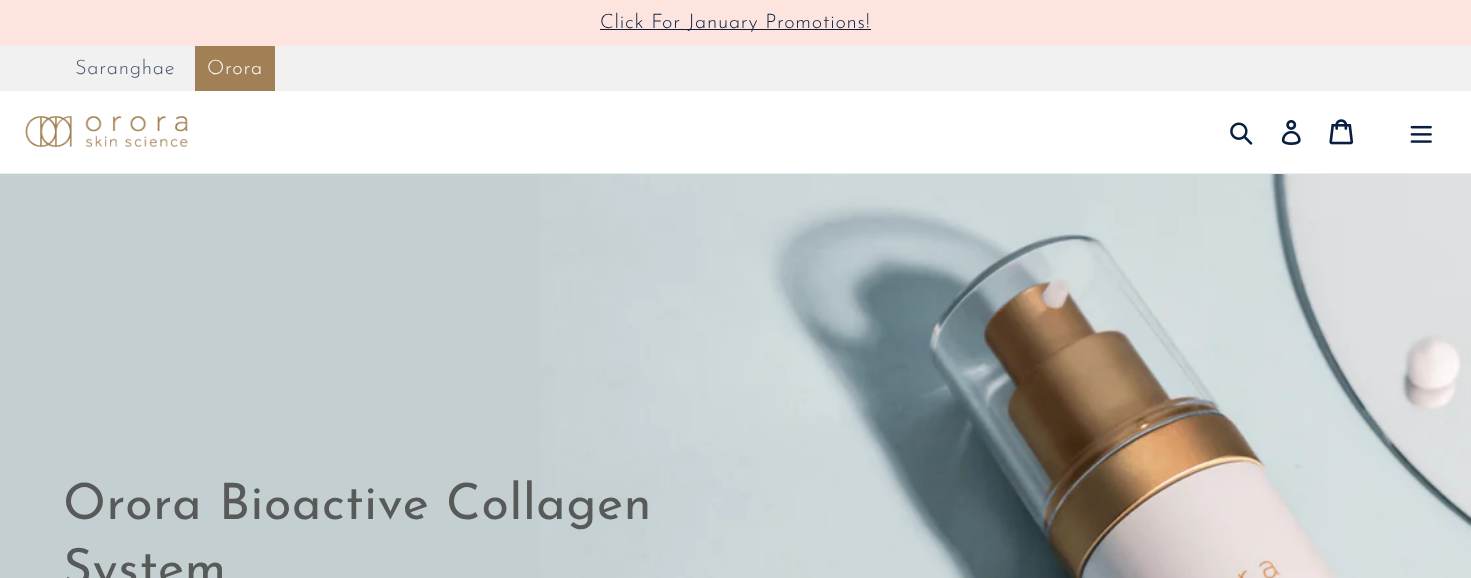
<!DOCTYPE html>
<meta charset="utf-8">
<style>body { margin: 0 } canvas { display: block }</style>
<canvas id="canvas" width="1471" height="578"></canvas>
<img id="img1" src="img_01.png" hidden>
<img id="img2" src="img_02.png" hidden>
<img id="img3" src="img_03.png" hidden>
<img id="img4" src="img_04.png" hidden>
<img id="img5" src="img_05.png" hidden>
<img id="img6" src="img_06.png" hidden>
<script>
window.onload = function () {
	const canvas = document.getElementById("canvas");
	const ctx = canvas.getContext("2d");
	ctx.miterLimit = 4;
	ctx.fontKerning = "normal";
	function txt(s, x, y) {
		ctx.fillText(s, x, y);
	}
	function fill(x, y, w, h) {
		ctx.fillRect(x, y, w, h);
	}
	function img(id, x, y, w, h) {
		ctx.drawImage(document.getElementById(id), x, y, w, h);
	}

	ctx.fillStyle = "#FFFFFF";
	fill(0, 0, 1471, 578);
	ctx.fillStyle = "#FDE4DE";
	fill(0, 0, 1471, 45);
	ctx.fillStyle = "#FDE6E1";
	fill(0, 45, 1471, 1);
	ctx.fillStyle = "#081F40";
	fill(600, 29, 271, 1);
	ctx.fillStyle = "#EBEDF0";
	fill(0, 173, 1471, 1);
	ctx.fillStyle = "#F1F1F1";
	fill(0, 46, 1471, 45);
	ctx.fillStyle = "#A18056";
	fill(195, 46, 80, 45);
	img("img1", 25, 116, 163, 32);
	img("img2", 1230, 122, 23, 23);
	img("img3", 1281, 120, 20, 25);
	img("img4", 1329, 119, 25, 26);
	img("img5", 1410, 125, 22, 18);
	img("img6", 0, 174, 1471, 404);
	ctx.letterSpacing = "0.75px";
	ctx.font = "300 20px Josefin Sans";
	ctx.fillStyle = "#081F40";
	txt("Click For January Promotions!", 600, 28);
	ctx.fillStyle = "#42546C";
	txt("Saranghae", 75, 74);
	ctx.fillStyle = "#FFFFFF";
	txt("Orora", 207, 74);
	ctx.font = "50px Josefin Sans";
	ctx.fillStyle = "#585959";
	txt("Orora Bioactive Collagen", 63, 519);
	txt("System", 63, 584);
};
</script>
